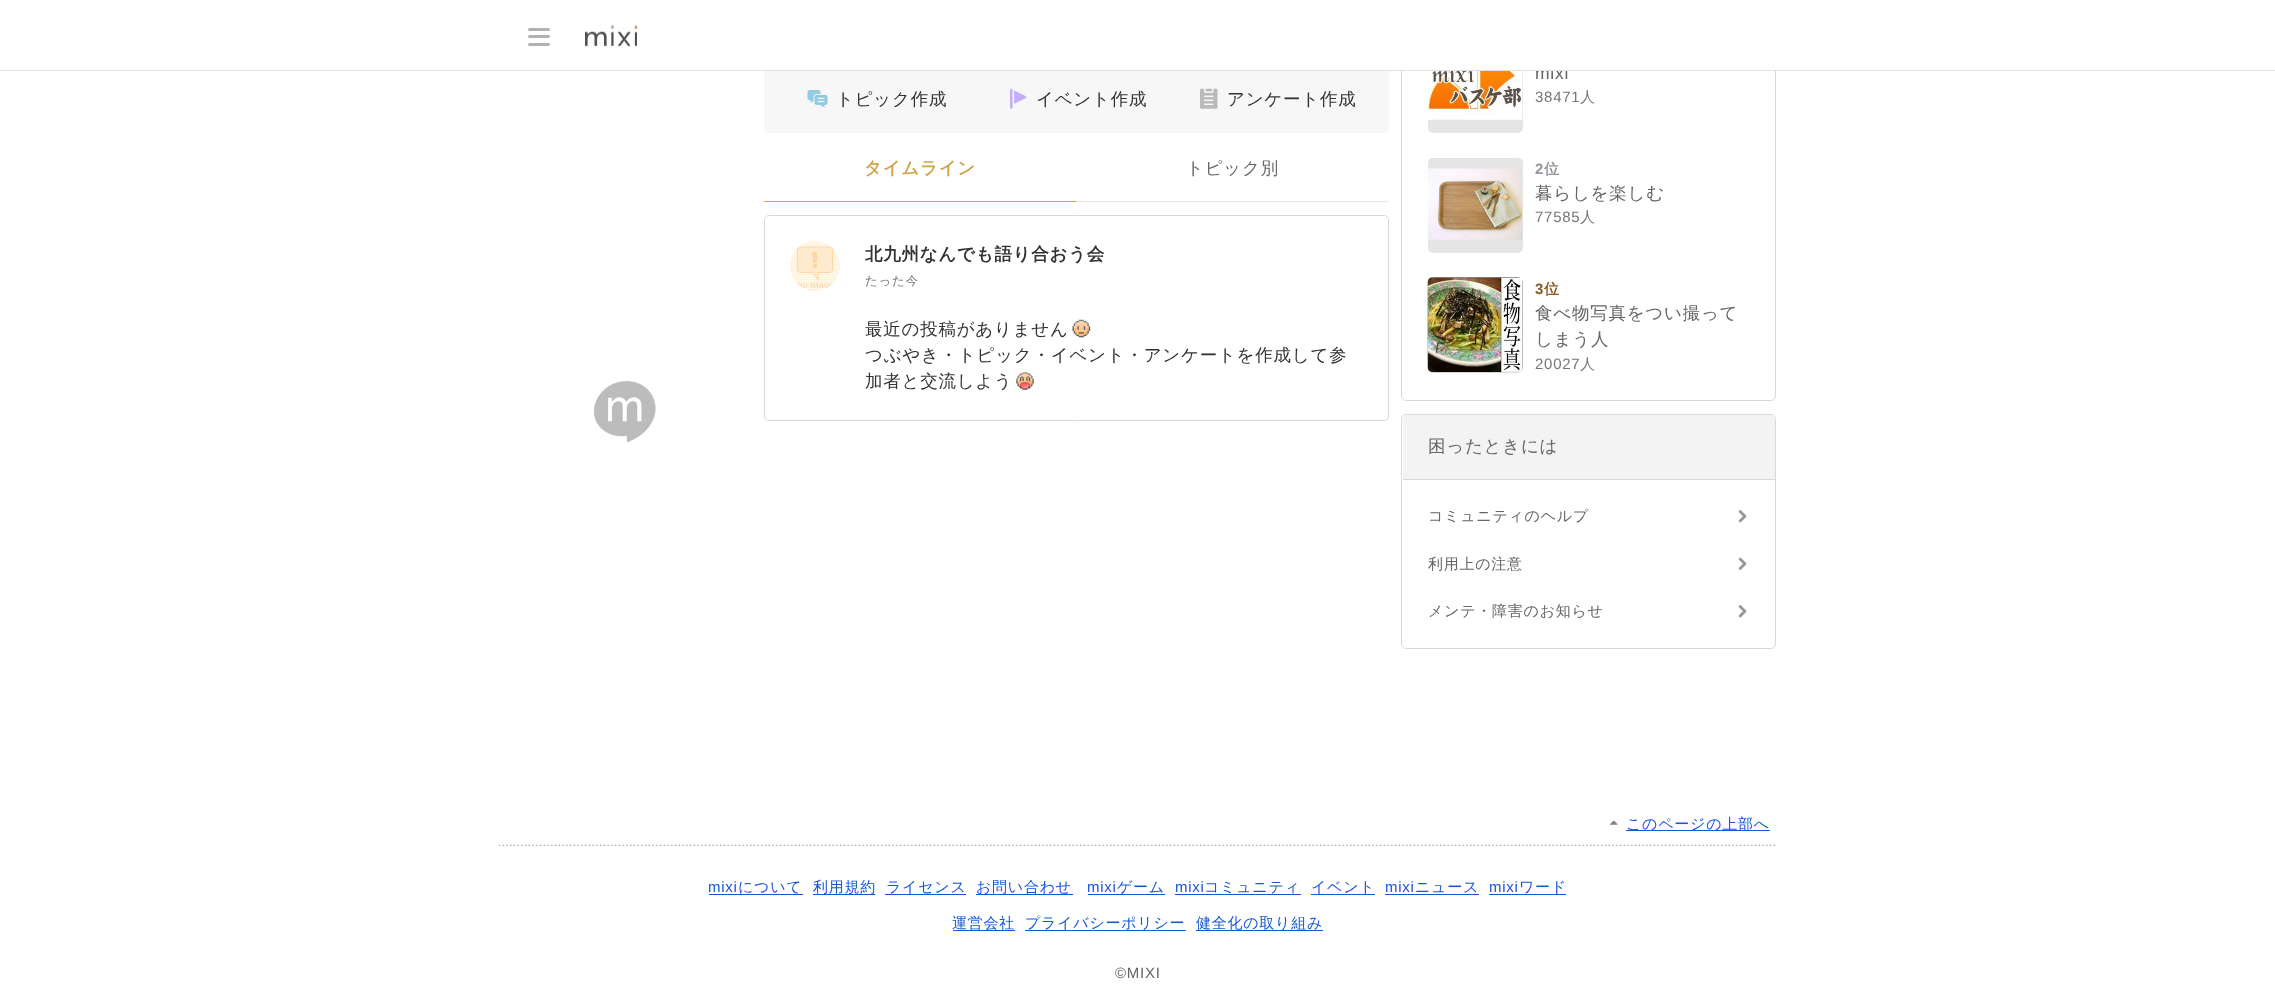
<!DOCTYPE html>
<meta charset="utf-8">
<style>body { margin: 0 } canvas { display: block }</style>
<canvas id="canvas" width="2275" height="1005"></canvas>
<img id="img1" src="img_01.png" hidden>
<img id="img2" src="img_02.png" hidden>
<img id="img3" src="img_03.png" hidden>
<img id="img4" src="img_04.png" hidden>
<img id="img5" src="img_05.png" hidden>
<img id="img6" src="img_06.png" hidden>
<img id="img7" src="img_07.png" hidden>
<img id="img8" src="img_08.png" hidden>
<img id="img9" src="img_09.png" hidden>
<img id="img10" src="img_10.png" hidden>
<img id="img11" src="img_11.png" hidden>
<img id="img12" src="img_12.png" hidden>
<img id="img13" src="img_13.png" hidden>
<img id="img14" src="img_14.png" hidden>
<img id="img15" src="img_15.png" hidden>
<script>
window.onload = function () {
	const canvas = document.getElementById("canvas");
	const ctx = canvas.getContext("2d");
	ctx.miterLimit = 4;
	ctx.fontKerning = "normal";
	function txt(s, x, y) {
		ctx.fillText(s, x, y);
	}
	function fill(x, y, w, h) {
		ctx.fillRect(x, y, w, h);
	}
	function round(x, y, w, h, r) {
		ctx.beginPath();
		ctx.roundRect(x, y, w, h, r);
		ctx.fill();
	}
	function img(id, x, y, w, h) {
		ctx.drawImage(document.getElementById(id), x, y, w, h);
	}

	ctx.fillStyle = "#FFFFFF";
	fill(0, 0, 2275, 1005);
	ctx.fillStyle = "#B2B2B2";
	round(528, 28, 22, 3, 1.5);
	round(528, 35, 22, 3, 1.5);
	round(528, 43, 22, 3, 1.5);
	img("img1", 585, 24, 53, 23);
	ctx.fillStyle = "#F7F7F7";
	ctx.beginPath();
	ctx.roundRect(764, 65, 625, 68, [0, 0, 5, 5]);
	ctx.fill();
	img("img2", 807, 90, 21, 18);
	img("img3", 1010, 88, 17, 21);
	img("img4", 1200, 88, 18, 21);
	ctx.fillStyle = "#E8E8E8";
	fill(1076, 201, 313, 1);
	ctx.fillStyle = "#CFA34C";
	fill(764, 201, 312, 1);
	ctx.beginPath();
	ctx.roundRect(764.5, 215.5, 624, 205, 4.5);
	ctx.strokeStyle = "#D9D9D9";
	ctx.stroke();
	img("img5", 790, 241, 50, 50);
	img("img6", 1072, 319, 19, 19);
	img("img7", 1016, 372, 18, 18);
	img("img8", 593, 381, 63, 62);
	ctx.beginPath();
	ctx.roundRect(1401.5, -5.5, 374, 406, 4.5);
	ctx.stroke();
	ctx.fillStyle = "#E5E5E5";
	round(1428, 38, 95, 95, 5);
	img("img9", 1427, 71, 96, 49);
	round(1428, 158, 95, 95, 5);
	img("img10", 1427, 168, 96, 72);
	round(1428, 278, 95, 95, 5);
	img("img11", 1427, 277, 96, 96);
	ctx.beginPath();
	ctx.roundRect(1401.5, 414.5, 374, 234, 4.5);
	ctx.stroke();
	ctx.fillStyle = "#F3F3F3";
	ctx.beginPath();
	ctx.roundRect(1403, 415, 372, 65, [5, 5, 0, 0]);
	ctx.fill();
	ctx.fillStyle = "#D9D9D9";
	fill(1403, 479, 372, 1);
	img("img12", 1738, 510, 9, 13);
	img("img13", 1738, 557, 9, 13);
	img("img12", 1738, 605, 9, 13);
	img("img14", 1610, 821, 8, 4);
	ctx.fillStyle = "#1558D6";
	fill(1626, 830, 144, 1);
	img("img15", 498, 844, 1278, 2);
	fill(709, 894, 94, 1);
	fill(813, 894, 62, 1);
	fill(885, 894, 81, 1);
	fill(976, 894, 97, 1);
	fill(1088, 894, 77, 1);
	fill(1175, 894, 126, 1);
	fill(1311, 894, 64, 1);
	fill(1385, 894, 94, 1);
	fill(1489, 894, 77, 1);
	fill(953, 930, 62, 1);
	fill(1025, 930, 161, 1);
	fill(1196, 930, 127, 1);
	ctx.letterSpacing = "0.75px";
	ctx.font = "500 17.5px WenQuanYi Zen Hei";
	ctx.fillStyle = "#333333";
	txt("トピック作成", 836, 105);
	txt("イベント作成", 1036, 105);
	txt("アンケート作成", 1227, 105);
	ctx.font = "bold 17.5px WenQuanYi Zen Hei";
	ctx.fillStyle = "#CFA34C";
	txt("タイムライン", 864, 174);
	ctx.font = "500 17.5px WenQuanYi Zen Hei";
	ctx.fillStyle = "#666666";
	txt("トピック別", 1186, 174);
	ctx.font = "bold 17.5px WenQuanYi Zen Hei";
	ctx.fillStyle = "#333333";
	txt("北九州なんでも語り合おう会", 865, 260);
	ctx.font = "500 12.5px WenQuanYi Zen Hei";
	ctx.fillStyle = "#767676";
	txt("たった今", 865, 285);
	ctx.font = "500 17.5px WenQuanYi Zen Hei";
	ctx.fillStyle = "#333333";
	txt("最近の投稿がありません", 865, 335);
	txt("つぶやき・トピック・イベント・アンケートを作成して参", 865, 361);
	txt("加者と交流しよう", 865, 387);
	ctx.font = "17.5px Liberation Sans";
	ctx.fillStyle = "#666666";
	txt("mixi", 1535, 79);
	ctx.fillStyle = "#E1E1E1";
	fill(0, 70, 2275, 1);
	ctx.fillStyle = "#FFFFFF";
	fill(764, 0, 1012, 70);
	ctx.font = "15px Liberation Sans";
	ctx.fillStyle = "#767676";
	txt("38471", 1535, 102);
	ctx.font = "500 15px WenQuanYi Zen Hei";
	txt("人", 1580, 102);
	ctx.font = "bold 15px Liberation Sans";
	ctx.fillStyle = "#929599";
	txt("2", 1535, 174);
	ctx.font = "bold 15px WenQuanYi Zen Hei";
	txt("位", 1544, 174);
	ctx.font = "500 17.5px WenQuanYi Zen Hei";
	ctx.fillStyle = "#666666";
	txt("暮らしを楽しむ", 1535, 199);
	ctx.font = "15px Liberation Sans";
	ctx.fillStyle = "#767676";
	txt("77585", 1535, 222);
	ctx.font = "500 15px WenQuanYi Zen Hei";
	txt("人", 1580, 222);
	ctx.font = "bold 15px Liberation Sans";
	ctx.fillStyle = "#8A5922";
	txt("3", 1535, 294);
	ctx.font = "bold 15px WenQuanYi Zen Hei";
	txt("位", 1544, 294);
	ctx.font = "500 17.5px WenQuanYi Zen Hei";
	ctx.fillStyle = "#666666";
	txt("食べ物写真をつい撮って", 1535, 319);
	txt("しまう人", 1535, 345);
	ctx.font = "15px Liberation Sans";
	ctx.fillStyle = "#767676";
	txt("20027", 1535, 369);
	ctx.font = "500 15px WenQuanYi Zen Hei";
	txt("人", 1580, 369);
	ctx.font = "500 17.5px WenQuanYi Zen Hei";
	ctx.fillStyle = "#666666";
	txt("困ったときには", 1428, 452);
	ctx.font = "500 15px WenQuanYi Zen Hei";
	txt("コミュニティのヘルプ", 1428, 521);
	txt("利用上の注意", 1428, 569);
	txt("メンテ・障害のお知らせ", 1428, 616);
	ctx.fillStyle = "#1558D6";
	txt("このページの上部へ", 1626, 829);
	ctx.font = "15px Liberation Sans";
	txt("mixi", 708, 892);
	ctx.font = "500 15px WenQuanYi Zen Hei";
	txt("について", 738, 892);
	txt("利用規約", 813, 892);
	txt("ライセンス", 886, 892);
	txt("お問い合わせ", 976, 892);
	ctx.font = "15px Liberation Sans";
	txt("mixi", 1087, 892);
	ctx.font = "500 15px WenQuanYi Zen Hei";
	txt("ゲーム", 1117, 892);
	ctx.font = "15px Liberation Sans";
	txt("mixi", 1175, 892);
	ctx.font = "500 15px WenQuanYi Zen Hei";
	txt("コミュニティ", 1204, 892);
	txt("イベント", 1311, 892);
	ctx.font = "15px Liberation Sans";
	txt("mixi", 1385, 892);
	ctx.font = "500 15px WenQuanYi Zen Hei";
	txt("ニュース", 1415, 892);
	ctx.font = "15px Liberation Sans";
	txt("mixi", 1489, 892);
	ctx.font = "500 15px WenQuanYi Zen Hei";
	txt("ワード", 1519, 892);
	txt("運営会社", 952, 928);
	txt("プライバシーポリシー", 1025, 928);
	txt("健全化の取り組み", 1196, 928);
	ctx.font = "15px Liberation Sans";
	ctx.fillStyle = "#666666";
	txt("©MIXI", 1115, 978);
};
</script>
